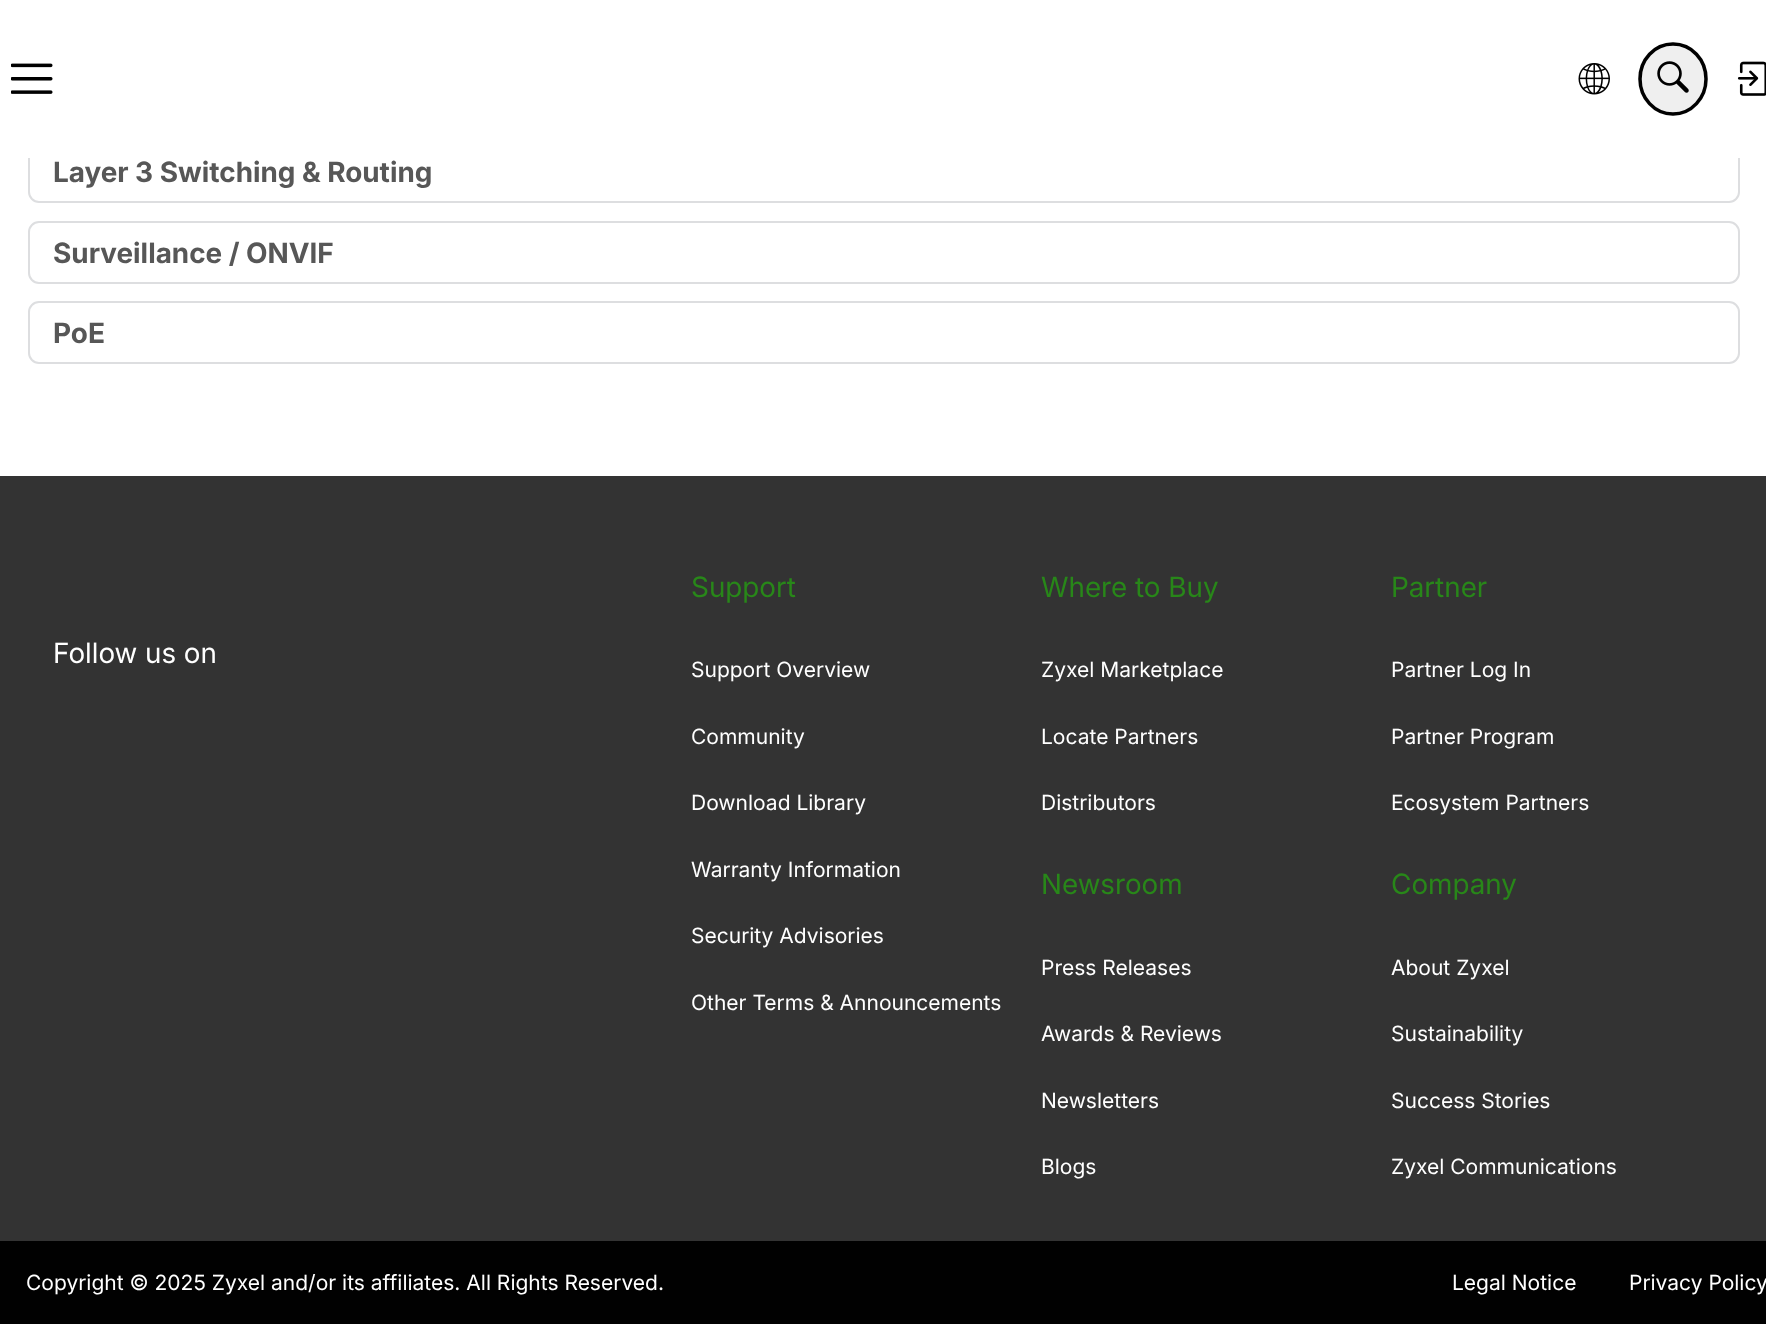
<!DOCTYPE html>
<meta charset="utf-8">
<style>body { margin: 0 } canvas { display: block }</style>
<canvas id="canvas" width="1766" height="1324"></canvas>
<img id="img1" src="img_01.png" hidden>
<img id="img2" src="img_02.png" hidden>
<img id="img3" src="img_03.png" hidden>
<img id="img4" src="img_04.png" hidden>
<script>
window.onload = function () {
	const canvas = document.getElementById("canvas");
	const ctx = canvas.getContext("2d");
	ctx.miterLimit = 4;
	ctx.fontKerning = "normal";
	function txt(s, x, y) {
		ctx.fillText(s, x, y);
	}
	function fill(x, y, w, h) {
		ctx.fillRect(x, y, w, h);
	}
	function img(id, x, y, w, h) {
		ctx.drawImage(document.getElementById(id), x, y, w, h);
	}

	ctx.fillStyle = "#FFFFFF";
	fill(0, 0, 1766, 1324);
	img("img1", 11, 63, 42, 31);
	img("img2", 1578, 63, 32, 32);
	ctx.fillStyle = "#EFEFEF";
	ctx.beginPath();
	ctx.ellipse(1673, 79, 35, 37, 0, 0, Math.PI * 2);
	ctx.fill();
	ctx.beginPath();
	ctx.moveTo(1673, 44);
	ctx.bezierCurveTo(1691.5, 44, 1706, 59.5, 1706, 79);
	ctx.bezierCurveTo(1706, 98, 1691.5, 114, 1673, 114);
	ctx.bezierCurveTo(1654.5, 114, 1640, 98, 1640, 79);
	ctx.bezierCurveTo(1640, 59.5, 1654.5, 44, 1673, 44);
	ctx.closePath();
	ctx.strokeStyle = "#000000";
	ctx.lineWidth = 3.5;
	ctx.stroke();
	img("img3", 1657, 61, 32, 32);
	img("img4", 1737, 61, 29, 35);
	ctx.beginPath();
	ctx.roundRect(29, 141, 1710, 61, 10);
	ctx.strokeStyle = "#DDDEE0";
	ctx.lineWidth = 2;
	ctx.stroke();
	ctx.fillStyle = "#FFFFFF";
	fill(28, 140, 1712, 18);
	ctx.beginPath();
	ctx.roundRect(29, 222, 1710, 61, 10);
	ctx.stroke();
	ctx.beginPath();
	ctx.roundRect(29, 302, 1710, 61, 10);
	ctx.stroke();
	ctx.fillStyle = "#333333";
	fill(0, 476, 1766, 765);
	ctx.fillStyle = "#010101";
	fill(0, 1241, 1766, 83);
	ctx.font = "bold 28px Inter";
	ctx.fillStyle = "#575757";
	txt("Layer 3 Switching & Routing", 53, 182);
	txt("Surveillance / ONVIF", 53, 263);
	txt("PoE", 53, 343);
	ctx.font = "28px Inter";
	ctx.fillStyle = "#FFFFFF";
	txt("Follow us on", 53, 663);
	ctx.fillStyle = "#288719";
	txt("Support", 691, 597);
	ctx.font = "21px 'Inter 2'";
	ctx.fillStyle = "#FFFFFF";
	txt("Support Overview", 691, 677);
	txt("Community", 691, 744);
	txt("Download Library", 691, 810);
	txt("Warranty Information", 691, 877);
	txt("Security Advisories", 691, 943);
	txt("Other Terms & Announcements", 691, 1010);
	ctx.font = "28px Inter";
	ctx.fillStyle = "#288719";
	txt("Where to Buy", 1041, 597);
	ctx.font = "21px 'Inter 2'";
	ctx.fillStyle = "#FFFFFF";
	txt("Zyxel Marketplace", 1041, 677);
	txt("Locate Partners", 1041, 744);
	txt("Distributors", 1041, 810);
	ctx.font = "28px Inter";
	ctx.fillStyle = "#288719";
	txt("Newsroom", 1041, 894);
	ctx.font = "21px 'Inter 2'";
	ctx.fillStyle = "#FFFFFF";
	txt("Press Releases", 1041, 975);
	txt("Awards & Reviews", 1041, 1041);
	txt("Newsletters", 1041, 1108);
	txt("Blogs", 1041, 1174);
	ctx.font = "28px Inter";
	ctx.fillStyle = "#288719";
	txt("Partner", 1391, 597);
	ctx.font = "21px 'Inter 2'";
	ctx.fillStyle = "#FFFFFF";
	txt("Partner Log In", 1391, 677);
	txt("Partner Program", 1391, 744);
	txt("Ecosystem Partners", 1391, 810);
	ctx.font = "28px Inter";
	ctx.fillStyle = "#288719";
	txt("Company", 1391, 894);
	ctx.font = "21px 'Inter 2'";
	ctx.fillStyle = "#FFFFFF";
	txt("About Zyxel", 1391, 975);
	txt("Sustainability", 1391, 1041);
	txt("Success Stories", 1391, 1108);
	txt("Zyxel Communications", 1391, 1174);
	txt("Copyright © 2025 Zyxel and/or its affiliates. All Rights Reserved.", 26, 1290);
	txt("Legal Notice", 1452, 1290);
	txt("Privacy Policy", 1629, 1290);
};
</script>
